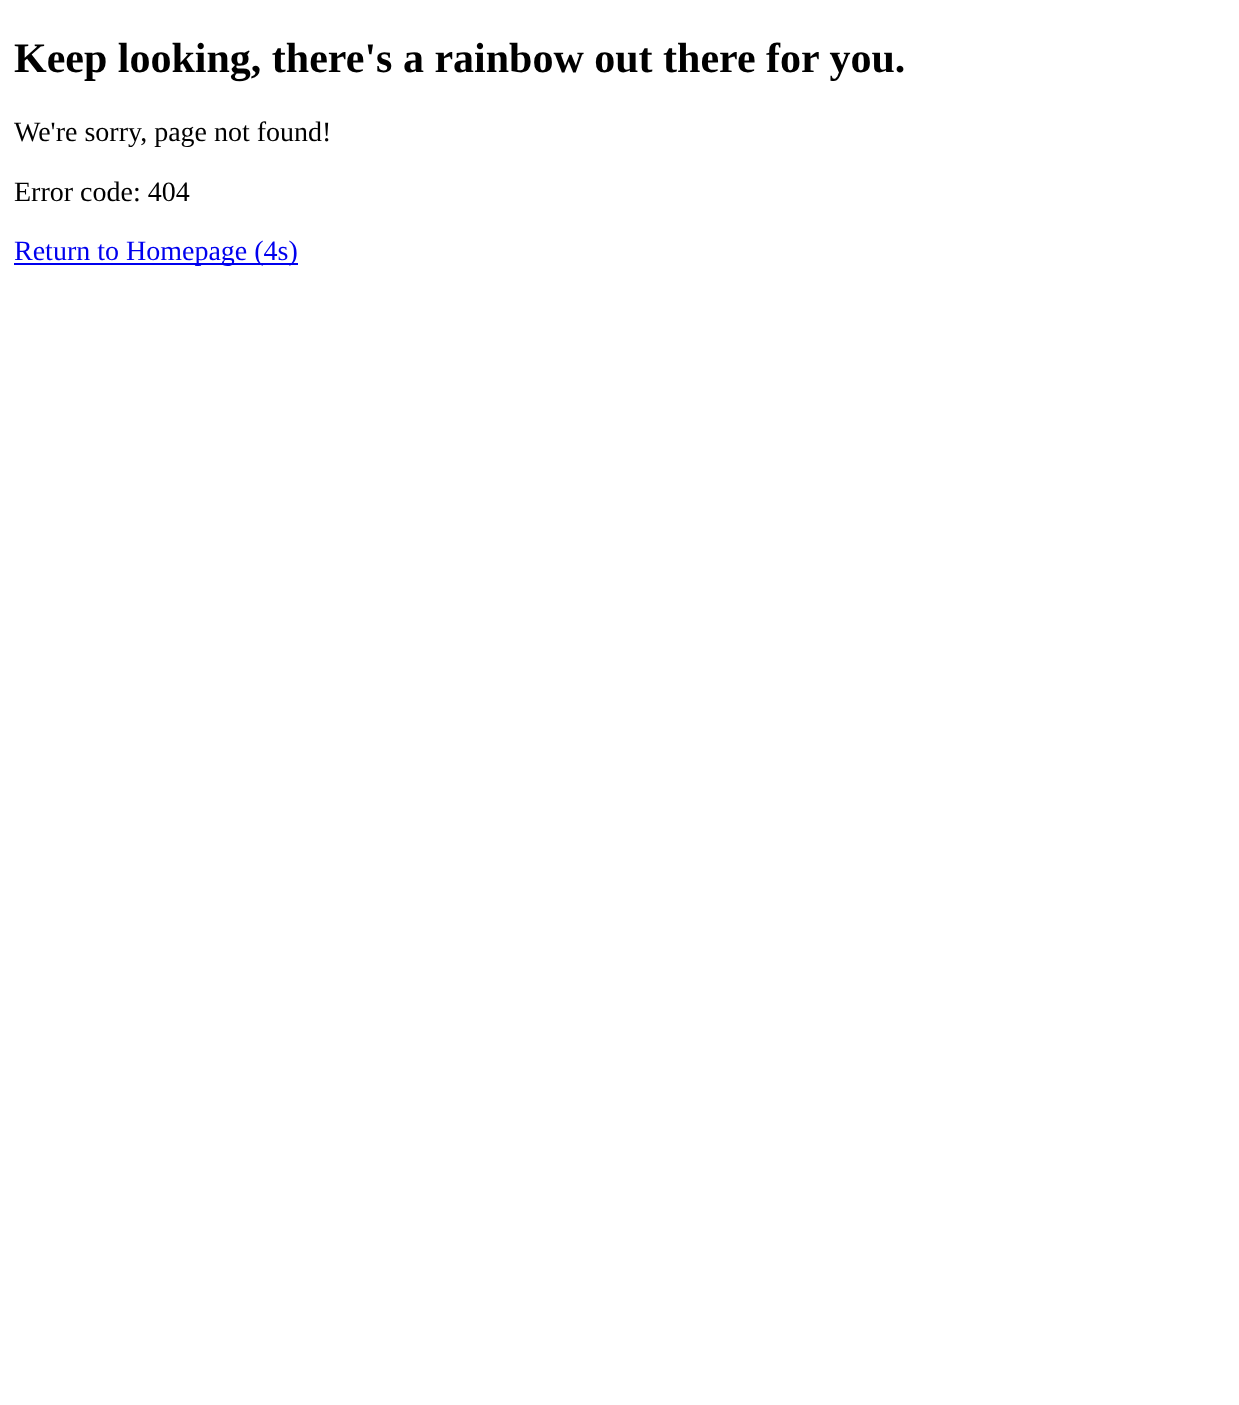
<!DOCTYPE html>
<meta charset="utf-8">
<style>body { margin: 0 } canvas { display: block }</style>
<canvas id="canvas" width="1239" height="1405"></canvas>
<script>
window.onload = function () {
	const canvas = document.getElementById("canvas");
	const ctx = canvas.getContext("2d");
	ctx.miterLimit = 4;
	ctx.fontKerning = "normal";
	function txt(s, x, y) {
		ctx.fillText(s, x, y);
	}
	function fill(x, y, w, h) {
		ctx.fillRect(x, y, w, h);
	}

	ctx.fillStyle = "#FFFFFF";
	fill(0, 0, 1239, 1405);
	ctx.fillStyle = "#0000EE";
	fill(14, 263, 284, 2);
	ctx.font = "bold 42px Liberation Serif";
	ctx.fillStyle = "#000000";
	txt("Keep looking, there's a rainbow out there for you.", 14, 72);
	ctx.font = "28px Liberation Serif";
	txt("We're sorry, page not found!", 14, 141);
	txt("Error code: 404", 14, 201);
	ctx.fillStyle = "#0000EE";
	txt("Return to Homepage (4s)", 14, 260);
};
</script>
